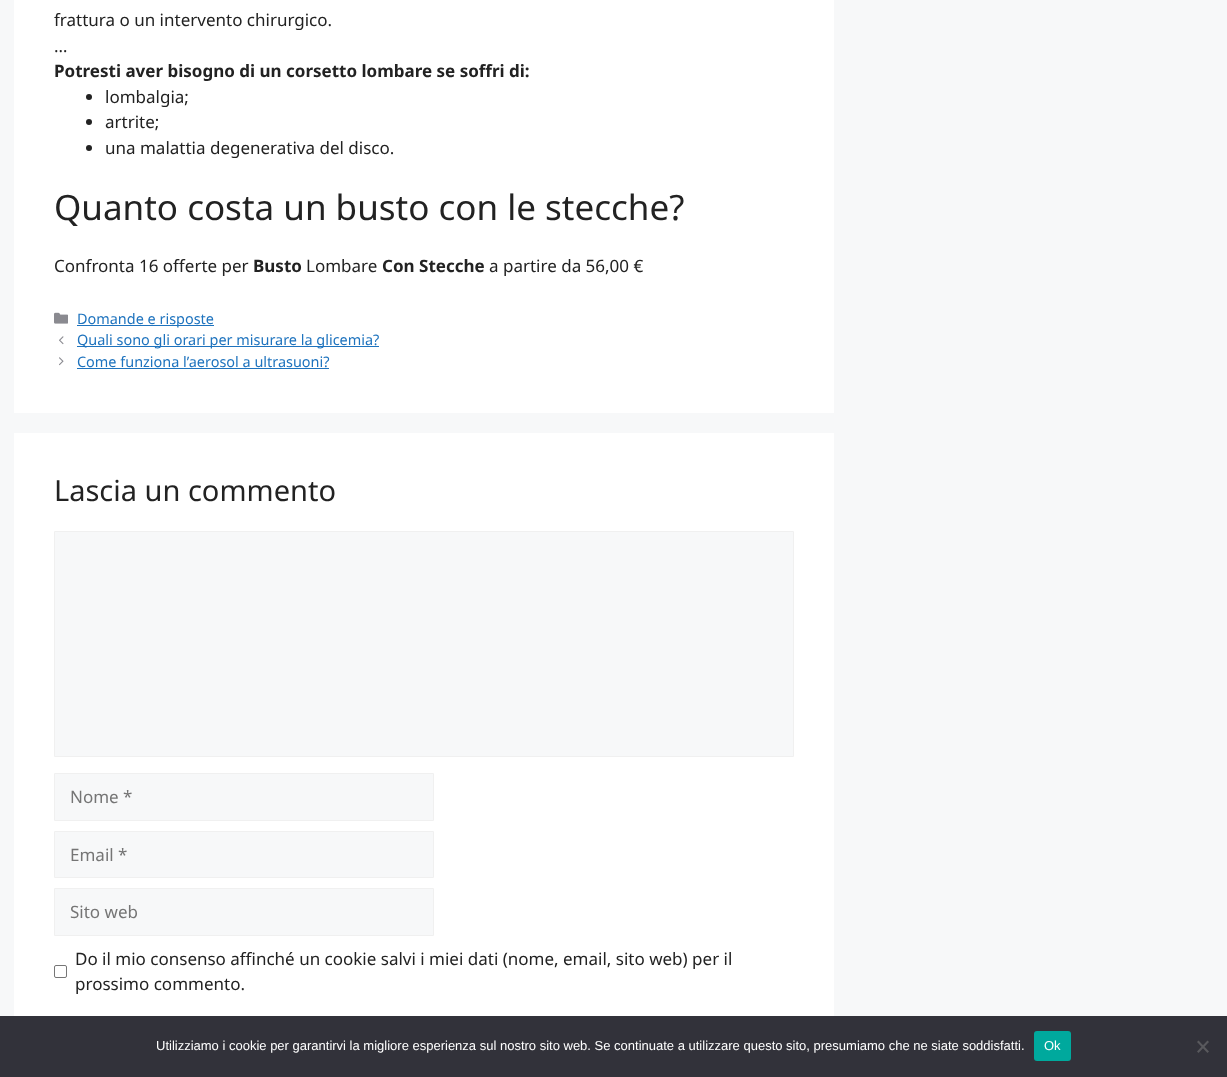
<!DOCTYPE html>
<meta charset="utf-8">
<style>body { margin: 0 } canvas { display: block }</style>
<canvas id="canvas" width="1227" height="1077"></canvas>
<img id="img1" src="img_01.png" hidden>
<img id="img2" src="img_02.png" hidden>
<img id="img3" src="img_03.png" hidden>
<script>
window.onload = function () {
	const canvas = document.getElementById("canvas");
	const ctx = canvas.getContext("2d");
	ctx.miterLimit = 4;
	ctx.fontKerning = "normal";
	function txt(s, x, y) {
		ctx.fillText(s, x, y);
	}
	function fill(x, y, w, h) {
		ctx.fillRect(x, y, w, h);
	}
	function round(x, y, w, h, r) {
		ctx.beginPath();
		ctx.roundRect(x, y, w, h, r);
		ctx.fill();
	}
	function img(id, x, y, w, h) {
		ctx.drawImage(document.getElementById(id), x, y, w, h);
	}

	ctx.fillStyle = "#F7F8F9";
	fill(0, 0, 1227, 1077);
	ctx.fillStyle = "#FFFFFF";
	fill(14, 0, 820, 413);
	ctx.fillStyle = "#222222";
	ctx.beginPath();
	ctx.arc(89, 97, 3, 0, Math.PI * 2);
	ctx.fill();
	ctx.beginPath();
	ctx.arc(89, 122, 3, 0, Math.PI * 2);
	ctx.fill();
	ctx.beginPath();
	ctx.arc(89, 148, 3, 0, Math.PI * 2);
	ctx.fill();
	img("img1", 54, 312, 14, 12);
	ctx.fillStyle = "#1E73BE";
	fill(77, 325, 137, 1);
	img("img2", 59, 336, 5, 9);
	fill(77, 346, 302, 1);
	img("img3", 59, 357, 5, 9);
	fill(77, 368, 252, 1);
	ctx.fillStyle = "#FFFFFF";
	fill(14, 433, 820, 583);
	ctx.fillStyle = "#F7F8F9";
	ctx.beginPath();
	ctx.rect(54.5, 531.5, 739, 225);
	ctx.fill();
	ctx.strokeStyle = "#F0F0F0";
	ctx.stroke();
	ctx.beginPath();
	ctx.rect(54.5, 773.5, 379, 47);
	ctx.fill();
	ctx.stroke();
	ctx.beginPath();
	ctx.rect(54.5, 831.5, 379, 46);
	ctx.fill();
	ctx.stroke();
	ctx.beginPath();
	ctx.rect(54.5, 888.5, 379, 47);
	ctx.fill();
	ctx.stroke();
	ctx.beginPath();
	ctx.roundRect(54.5, 965.5, 12, 12, 1.5);
	ctx.strokeStyle = "#767676";
	ctx.stroke();
	ctx.fillStyle = "#32323A";
	fill(0, 1016, 1227, 61);
	ctx.fillStyle = "#00A99D";
	round(1034, 1031, 37, 30, 3);
	ctx.fillStyle = "#59595D";
	ctx.beginPath();
	ctx.moveTo(1207.5, 1040.5);
	ctx.lineTo(1209, 1042);
	ctx.lineTo(1198.5, 1053);
	ctx.lineTo(1197, 1051.5);
	ctx.closePath();
	ctx.fill();
	ctx.beginPath();
	ctx.moveTo(1197, 1042);
	ctx.lineTo(1198.5, 1040.5);
	ctx.lineTo(1209, 1051.5);
	ctx.lineTo(1207.5, 1053);
	ctx.closePath();
	ctx.fill();
	ctx.font = "17px Noto Sans";
	ctx.fillStyle = "#222222";
	txt("frattura o un intervento chirurgico.", 54, 26);
	txt("…", 54, 52);
	ctx.font = "bold 17px Noto Sans";
	txt("Potresti aver bisogno di un corsetto lombare se soffri di:", 54, 77);
	ctx.font = "17px Noto Sans";
	txt("lombalgia;", 105, 103);
	txt("artrite;", 105, 128);
	txt("una malattia degenerativa del disco.", 105, 154);
	ctx.font = "35px Noto Sans";
	txt("Quanto costa un busto con le stecche?", 54, 220);
	ctx.font = "17px Noto Sans";
	txt("Confronta 16 offerte per", 54, 272);
	ctx.font = "bold 17px Noto Sans";
	txt("Busto", 253, 272);
	ctx.font = "17px Noto Sans";
	txt("Lombare", 306, 272);
	ctx.font = "bold 17px Noto Sans";
	txt("Con Stecche", 382, 272);
	ctx.font = "17px Noto Sans";
	txt("a partire da 56,00 €", 489, 272);
	ctx.font = "14.45px Noto Sans";
	ctx.fillStyle = "#1E73BE";
	txt("Domande e risposte", 77, 324);
	txt("Quali sono gli orari per misurare la glicemia?", 77, 345);
	txt("Come funziona l’aerosol a ultrasuoni?", 77, 367);
	ctx.font = "29px Noto Sans";
	ctx.fillStyle = "#222222";
	txt("Lascia un commento", 54, 501);
	ctx.font = "17px Noto Sans";
	ctx.fillStyle = "#757575";
	txt("Nome *", 70, 803);
	txt("Email *", 70, 861);
	txt("Sito web", 70, 918);
	ctx.fillStyle = "#222222";
	txt("Do il mio consenso affinché un cookie salvi i miei dati (nome, email, sito web) per il", 75, 965);
	txt("prossimo commento.", 75, 990);
	ctx.font = "13px Liberation Sans";
	ctx.fillStyle = "#FFFFFF";
	txt("Utilizziamo i cookie per garantirvi la migliore esperienza sul nostro sito web. Se continuate a utilizzare questo sito, presumiamo che ne siate soddisfatti.", 156, 1050);
	txt("Ok", 1044, 1050);
};
</script>
